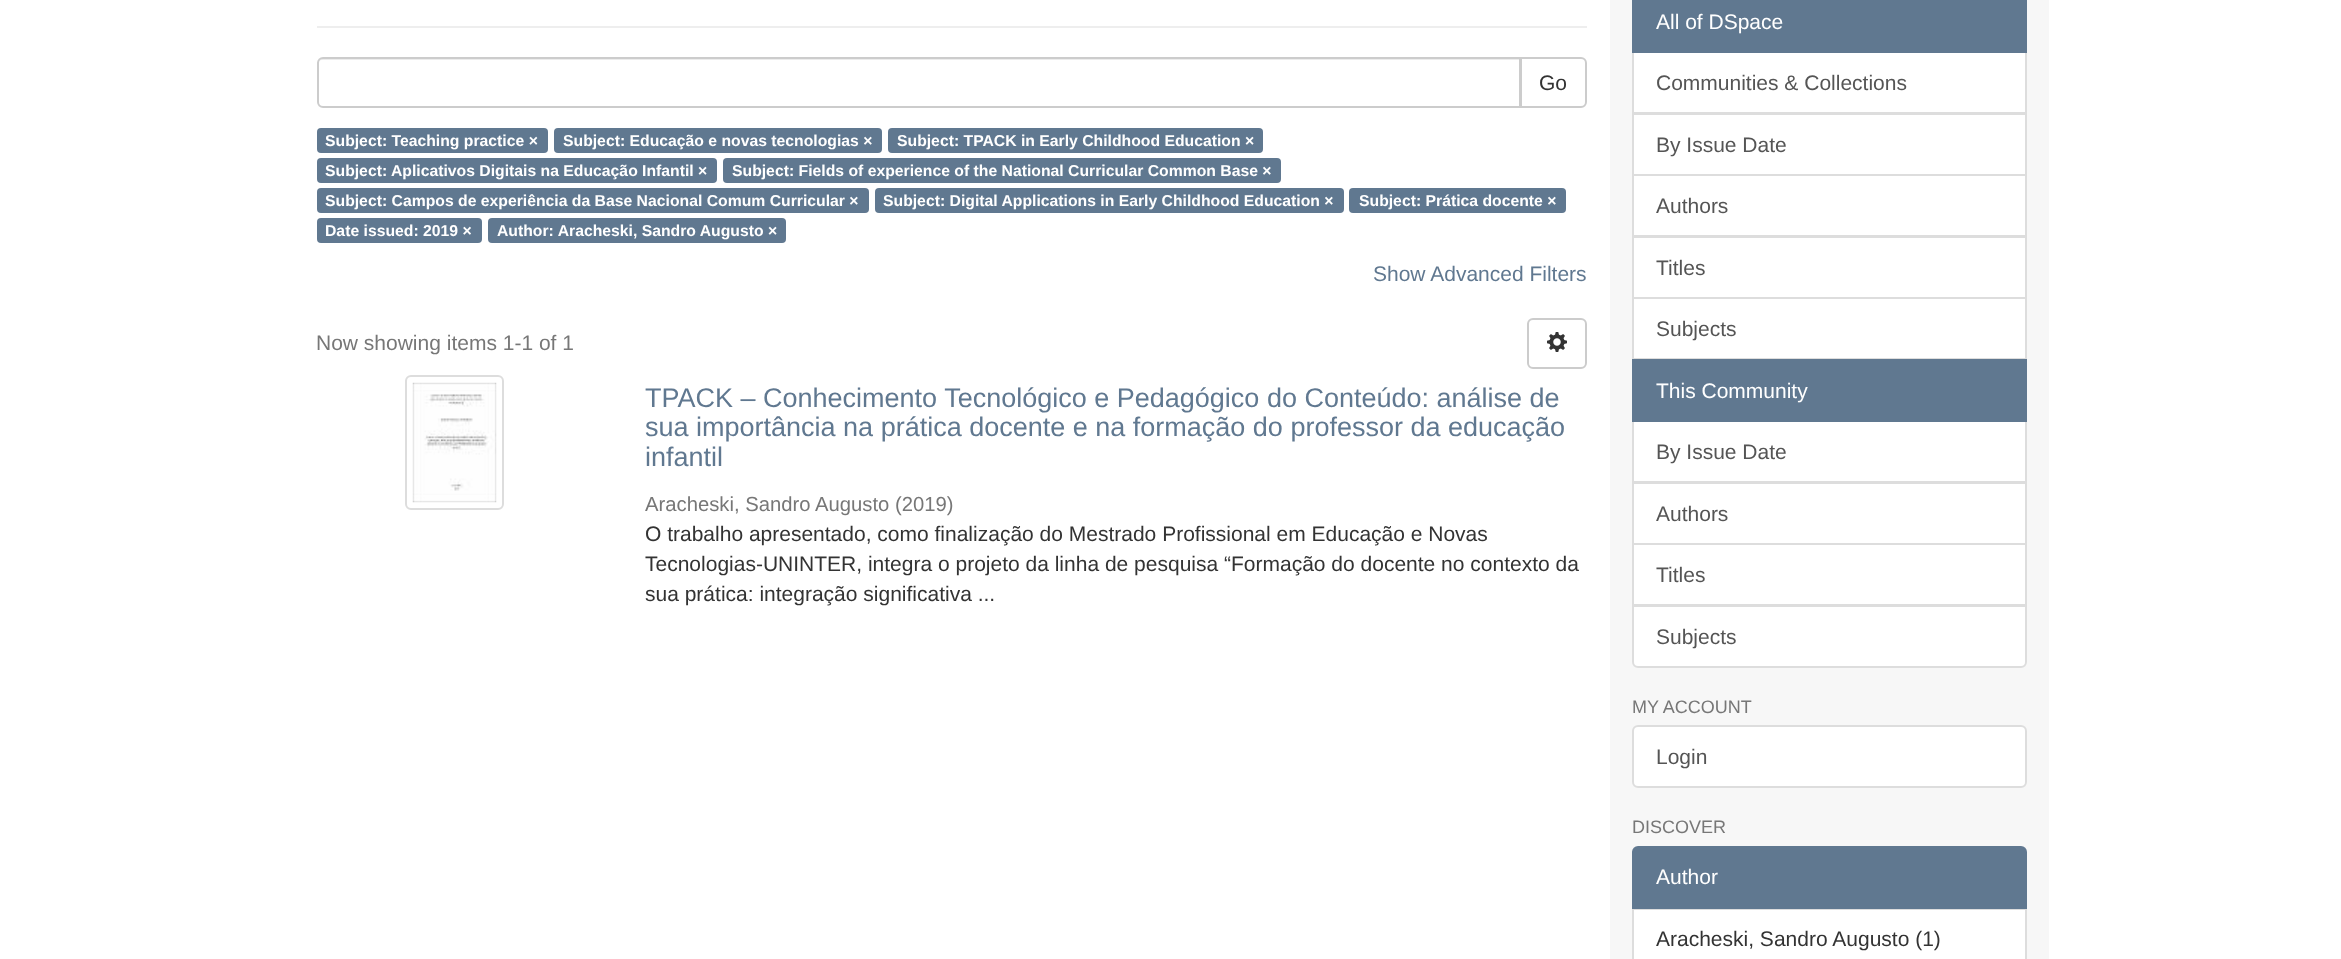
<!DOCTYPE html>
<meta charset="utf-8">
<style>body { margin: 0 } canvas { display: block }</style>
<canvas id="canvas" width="2341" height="959"></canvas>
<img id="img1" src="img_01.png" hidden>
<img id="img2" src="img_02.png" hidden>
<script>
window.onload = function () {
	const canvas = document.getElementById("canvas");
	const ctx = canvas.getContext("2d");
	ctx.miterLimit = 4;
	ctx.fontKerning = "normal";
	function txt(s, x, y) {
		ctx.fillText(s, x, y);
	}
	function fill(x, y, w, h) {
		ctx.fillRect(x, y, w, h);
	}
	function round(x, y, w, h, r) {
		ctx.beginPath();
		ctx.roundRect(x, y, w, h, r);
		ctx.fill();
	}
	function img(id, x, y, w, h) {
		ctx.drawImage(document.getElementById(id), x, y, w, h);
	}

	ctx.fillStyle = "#FFFFFF";
	fill(0, 0, 2341, 959);
	ctx.fillStyle = "#F7F7F7";
	fill(1610, 0, 439, 959);
	ctx.fillStyle = "#EEEEEE";
	fill(317, 26, 1270, 2);
	ctx.beginPath();
	ctx.roundRect(1521, 58, 65, 49, [0, 5, 5, 0]);
	ctx.strokeStyle = "#CCCCCC";
	ctx.lineWidth = 2;
	ctx.stroke();
	ctx.fillStyle = "#FFFFFF";
	ctx.beginPath();
	ctx.roundRect(317, 57, 1204, 51, [6, 0, 0, 6]);
	ctx.fill();
	ctx.fillStyle = "#ECECEC";
	ctx.beginPath();
	ctx.moveTo(322, 60);
	ctx.lineTo(1520, 60);
	ctx.lineTo(1520, 59);
	ctx.lineTo(323, 59);
	ctx.bezierCurveTo(320, 59, 318, 61, 318, 64);
	ctx.bezierCurveTo(318, 62, 320, 60, 322, 60);
	ctx.closePath();
	ctx.fill();
	ctx.beginPath();
	ctx.roundRect(318, 58, 1202, 49, [5, 0, 0, 5]);
	ctx.stroke();
	ctx.fillStyle = "#607890";
	round(317, 128, 231, 25, 4);
	round(554, 128, 328, 25, 4);
	round(888, 128, 375, 25, 4);
	round(317, 158, 400, 25, 4);
	round(723, 158, 558, 25, 4);
	round(317, 188, 552, 25, 4);
	round(875, 188, 469, 25, 4);
	round(1349, 188, 217, 25, 4);
	round(317, 218, 165, 25, 4);
	round(488, 218, 298, 25, 4);
	ctx.beginPath();
	ctx.roundRect(1528, 319, 58, 49, 5);
	ctx.stroke();
	img("img1", 1547, 332, 20, 20);
	ctx.beginPath();
	ctx.roundRect(406, 376, 97, 133, 5);
	ctx.strokeStyle = "#DDDDDD";
	ctx.stroke();
	img("img2", 412, 382, 85, 121);
	ctx.fillStyle = "#FFFFFF";
	ctx.beginPath();
	ctx.rect(1633, 52, 393, 61);
	ctx.fill();
	ctx.stroke();
	ctx.fillStyle = "#607890";
	fill(1632, 0, 395, 53);
	ctx.fillStyle = "#FFFFFF";
	ctx.beginPath();
	ctx.rect(1633, 114, 393, 61);
	ctx.fill();
	ctx.stroke();
	ctx.beginPath();
	ctx.rect(1633, 175, 393, 61);
	ctx.fill();
	ctx.stroke();
	ctx.beginPath();
	ctx.rect(1633, 237, 393, 61);
	ctx.fill();
	ctx.stroke();
	ctx.beginPath();
	ctx.rect(1633, 298, 393, 61);
	ctx.fill();
	ctx.stroke();
	ctx.beginPath();
	ctx.rect(1633, 421, 393, 61);
	ctx.fill();
	ctx.stroke();
	ctx.fillStyle = "#607890";
	fill(1632, 359, 395, 63);
	ctx.fillStyle = "#FFFFFF";
	ctx.beginPath();
	ctx.rect(1633, 483, 393, 61);
	ctx.fill();
	ctx.stroke();
	ctx.beginPath();
	ctx.rect(1633, 544, 393, 61);
	ctx.fill();
	ctx.stroke();
	ctx.beginPath();
	ctx.roundRect(1633, 606, 393, 61, [0, 0, 5, 5]);
	ctx.fill();
	ctx.stroke();
	ctx.beginPath();
	ctx.roundRect(1633, 726, 393, 61, 5);
	ctx.fill();
	ctx.stroke();
	ctx.beginPath();
	ctx.rect(1633, 909, 393, 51);
	ctx.fill();
	ctx.stroke();
	ctx.fillStyle = "#607890";
	ctx.beginPath();
	ctx.roundRect(1633, 847, 393, 61, [5, 5, 0, 0]);
	ctx.fill();
	ctx.strokeStyle = "#607890";
	ctx.stroke();
	ctx.font = "21px Liberation Sans";
	ctx.fillStyle = "#333333";
	txt("Go", 1539, 90);
	ctx.font = "bold 15.75px Liberation Sans";
	ctx.fillStyle = "#FFFFFF";
	txt("Subject: Teaching practice ×", 325, 146);
	txt("Subject: Educação e novas tecnologias ×", 563, 146);
	txt("Subject: TPACK in Early Childhood Education ×", 897, 146);
	txt("Subject: Aplicativos Digitais na Educação Infantil ×", 325, 176);
	txt("Subject: Fields of experience of the National Curricular Common Base ×", 732, 176);
	txt("Subject: Campos de experiência da Base Nacional Comum Curricular ×", 325, 206);
	txt("Subject: Digital Applications in Early Childhood Education ×", 883, 206);
	txt("Subject: Prática docente ×", 1359, 206);
	txt("Date issued: 2019 ×", 325, 236);
	txt("Author: Aracheski, Sandro Augusto ×", 497, 236);
	ctx.font = "21px Liberation Sans";
	ctx.fillStyle = "#607890";
	txt("Show Advanced Filters", 1373, 281);
	ctx.fillStyle = "#777777";
	txt("Now showing items 1-1 of 1", 316, 350);
	ctx.font = "27px Liberation Sans";
	ctx.fillStyle = "#607890";
	txt("TPACK – Conhecimento Tecnológico e Pedagógico do Conteúdo: análise de", 645, 407);
	txt("sua importância na prática docente e na formação do professor da educação", 645, 436);
	txt("infantil", 645, 466);
	ctx.font = "20.25px Liberation Sans";
	ctx.fillStyle = "#777777";
	txt("Aracheski, Sandro Augusto (2019)", 645, 511);
	ctx.font = "21px Liberation Sans";
	ctx.fillStyle = "#333333";
	txt("O trabalho apresentado, como finalização do Mestrado Profissional em Educação e Novas", 645, 541);
	txt("Tecnologias-UNINTER, integra o projeto da linha de pesquisa “Formação do docente no contexto da", 645, 571);
	txt("sua prática: integração significativa ...", 645, 601);
	ctx.fillStyle = "#FFFFFF";
	txt("All of DSpace", 1656, 29);
	ctx.fillStyle = "#555555";
	txt("Communities & Collections", 1656, 90);
	txt("By Issue Date", 1656, 152);
	txt("Authors", 1656, 213);
	txt("Titles", 1656, 275);
	txt("Subjects", 1656, 336);
	ctx.fillStyle = "#FFFFFF";
	txt("This Community", 1656, 398);
	ctx.fillStyle = "#555555";
	txt("By Issue Date", 1656, 459);
	txt("Authors", 1656, 521);
	txt("Titles", 1656, 582);
	txt("Subjects", 1656, 644);
	ctx.font = "18px Liberation Sans";
	ctx.fillStyle = "#777777";
	txt("MY ACCOUNT", 1632, 713);
	ctx.font = "21px Liberation Sans";
	ctx.fillStyle = "#555555";
	txt("Login", 1656, 764);
	ctx.font = "18px Liberation Sans";
	ctx.fillStyle = "#777777";
	txt("DISCOVER", 1632, 833);
	ctx.font = "21px Liberation Sans";
	ctx.fillStyle = "#FFFFFF";
	txt("Author", 1656, 884);
	ctx.fillStyle = "#333333";
	txt("Aracheski, Sandro Augusto (1)", 1656, 946);
};
</script>
